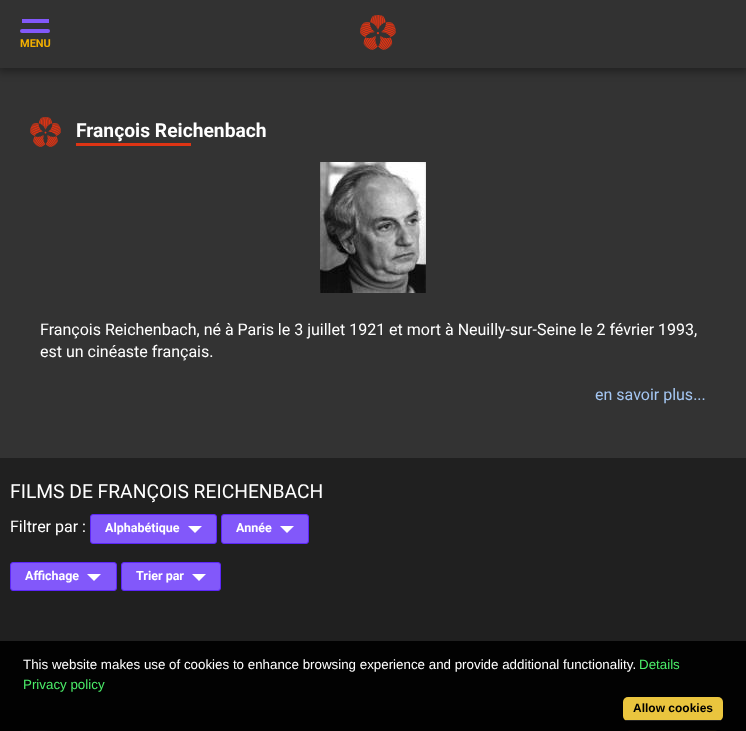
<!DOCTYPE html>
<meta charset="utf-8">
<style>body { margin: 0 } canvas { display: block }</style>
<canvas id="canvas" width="746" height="731"></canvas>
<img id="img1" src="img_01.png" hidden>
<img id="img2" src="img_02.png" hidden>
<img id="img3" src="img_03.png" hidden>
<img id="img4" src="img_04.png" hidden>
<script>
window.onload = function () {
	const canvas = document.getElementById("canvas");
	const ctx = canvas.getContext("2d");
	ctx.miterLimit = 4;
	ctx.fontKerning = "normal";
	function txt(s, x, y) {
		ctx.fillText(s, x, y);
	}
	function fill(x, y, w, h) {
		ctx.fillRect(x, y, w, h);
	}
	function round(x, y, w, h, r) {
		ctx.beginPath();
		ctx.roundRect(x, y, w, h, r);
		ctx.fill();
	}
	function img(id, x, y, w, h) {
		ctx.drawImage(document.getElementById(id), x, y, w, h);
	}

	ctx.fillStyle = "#202020";
	fill(0, 0, 746, 731);
	ctx.fillStyle = "#020202";
	fill(0, 641, 746, 69);
	ctx.fillStyle = "#333333";
	fill(0, 68, 746, 390);
	ctx.fillStyle = "rgba(0, 0, 0, 0.35)";
	ctx.filter = "blur(4.5px)";
	ctx.beginPath();
	ctx.rect(-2, 0, 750, 72);
	ctx.fill();
	ctx.filter = "none";
	ctx.fillStyle = "#323232";
	fill(0, 0, 746, 68);
	ctx.fillStyle = "#8258FA";
	fill(22, 19, 27, 4);
	round(20, 29, 30, 4, 2);
	img("img1", 360, 15, 36, 35);
	img("img2", 30, 117, 31, 30);
	ctx.fillStyle = "#DE3414";
	fill(76, 143, 115, 3);
	img("img3", 320, 162, 106, 131);
	ctx.fillStyle = "#8258FA";
	ctx.beginPath();
	ctx.roundRect(90.5, 514.5, 126, 29, 2.5);
	ctx.fill();
	ctx.strokeStyle = "#5D26F9";
	ctx.stroke();
	ctx.fillStyle = "#FFFFFF";
	ctx.beginPath();
	ctx.moveTo(188, 526);
	ctx.lineTo(202, 526);
	ctx.lineTo(195, 533);
	ctx.closePath();
	ctx.fill();
	ctx.fillStyle = "#8258FA";
	ctx.beginPath();
	ctx.roundRect(221.5, 514.5, 87, 29, 2.5);
	ctx.fill();
	ctx.stroke();
	ctx.fillStyle = "#FFFFFF";
	ctx.beginPath();
	ctx.moveTo(280, 526);
	ctx.lineTo(294, 526);
	ctx.lineTo(287, 533);
	ctx.closePath();
	ctx.fill();
	ctx.fillStyle = "#8258FA";
	ctx.beginPath();
	ctx.roundRect(10.5, 562.5, 106, 28, 2.5);
	ctx.fill();
	ctx.stroke();
	ctx.fillStyle = "#FFFFFF";
	ctx.beginPath();
	ctx.moveTo(87, 574);
	ctx.lineTo(101, 574);
	ctx.lineTo(94, 581);
	ctx.closePath();
	ctx.fill();
	ctx.fillStyle = "#8258FA";
	ctx.beginPath();
	ctx.roundRect(121.5, 562.5, 99, 28, 2.5);
	ctx.fill();
	ctx.stroke();
	ctx.fillStyle = "#FFFFFF";
	ctx.beginPath();
	ctx.moveTo(192, 574);
	ctx.lineTo(206, 574);
	ctx.lineTo(199, 581);
	ctx.closePath();
	ctx.fill();
	ctx.fillStyle = "#010101";
	fill(0, 710, 746, 21);
	img("img4", 20, 730, 701, 1);
	ctx.fillStyle = "#0B0301";
	ctx.beginPath();
	ctx.moveTo(630, 730);
	ctx.lineTo(672, 730);
	ctx.lineTo(672, 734);
	ctx.lineTo(630, 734);
	ctx.bezierCurveTo(628.5, 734, 627, 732.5, 627, 731);
	ctx.lineTo(627, 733);
	ctx.bezierCurveTo(627, 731.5, 628.5, 730, 630, 730);
	ctx.closePath();
	ctx.fill();
	ctx.beginPath();
	ctx.moveTo(672, 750);
	ctx.lineTo(672, 730);
	ctx.lineTo(680, 730);
	ctx.closePath();
	ctx.fill();
	ctx.fillStyle = "#0C0900";
	ctx.beginPath();
	ctx.moveTo(680, 730);
	ctx.lineTo(715, 730);
	ctx.bezierCurveTo(716.5, 730, 718, 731.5, 718, 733);
	ctx.lineTo(718, 731);
	ctx.bezierCurveTo(718, 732.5, 716.5, 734, 715, 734);
	ctx.lineTo(680, 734);
	ctx.closePath();
	ctx.fill();
	ctx.fillStyle = "#EAC53E";
	round(623, 697, 100, 24, 5);
	ctx.fillStyle = "#222222";
	fill(626, 720, 95, 1);
	ctx.font = "bold 11px Roboto";
	ctx.fillStyle = "#F2AF01";
	txt("MENU", 20, 47);
	ctx.font = "bold 19.25px Roboto";
	ctx.fillStyle = "#FFFFFF";
	txt("François Reichenbach", 76, 137);
	ctx.font = "16px Roboto";
	txt("François Reichenbach, né à Paris le 3 juillet 1921 et mort à Neuilly-sur-Seine le 2 février 1993,", 40, 335);
	txt("est un cinéaste français.", 40, 357);
	ctx.fillStyle = "#A5C7F3";
	txt("en savoir plus...", 595, 400);
	ctx.font = "19.25px Roboto";
	ctx.fillStyle = "#FFFFFF";
	txt("FILMS DE FRANÇOIS REICHENBACH", 10, 498);
	ctx.font = "16px Roboto";
	txt("Filtrer par :", 10, 532);
	ctx.font = "bold 12.5px Roboto";
	txt("Alphabétique", 105, 532);
	txt("Année", 236, 532);
	txt("Affichage", 25, 580);
	txt("Trier par", 136, 580);
	ctx.font = "13.35px Liberation Sans";
	txt("This website makes use of cookies to enhance browsing experience and provide additional functionality.", 23, 669);
	ctx.fillStyle = "#4BEC69";
	txt("Details", 639, 669);
	txt("Privacy policy", 23, 689);
	ctx.font = "bold 12px Liberation Sans";
	ctx.fillStyle = "#000000";
	txt("Allow cookies", 633, 712);
};
</script>
